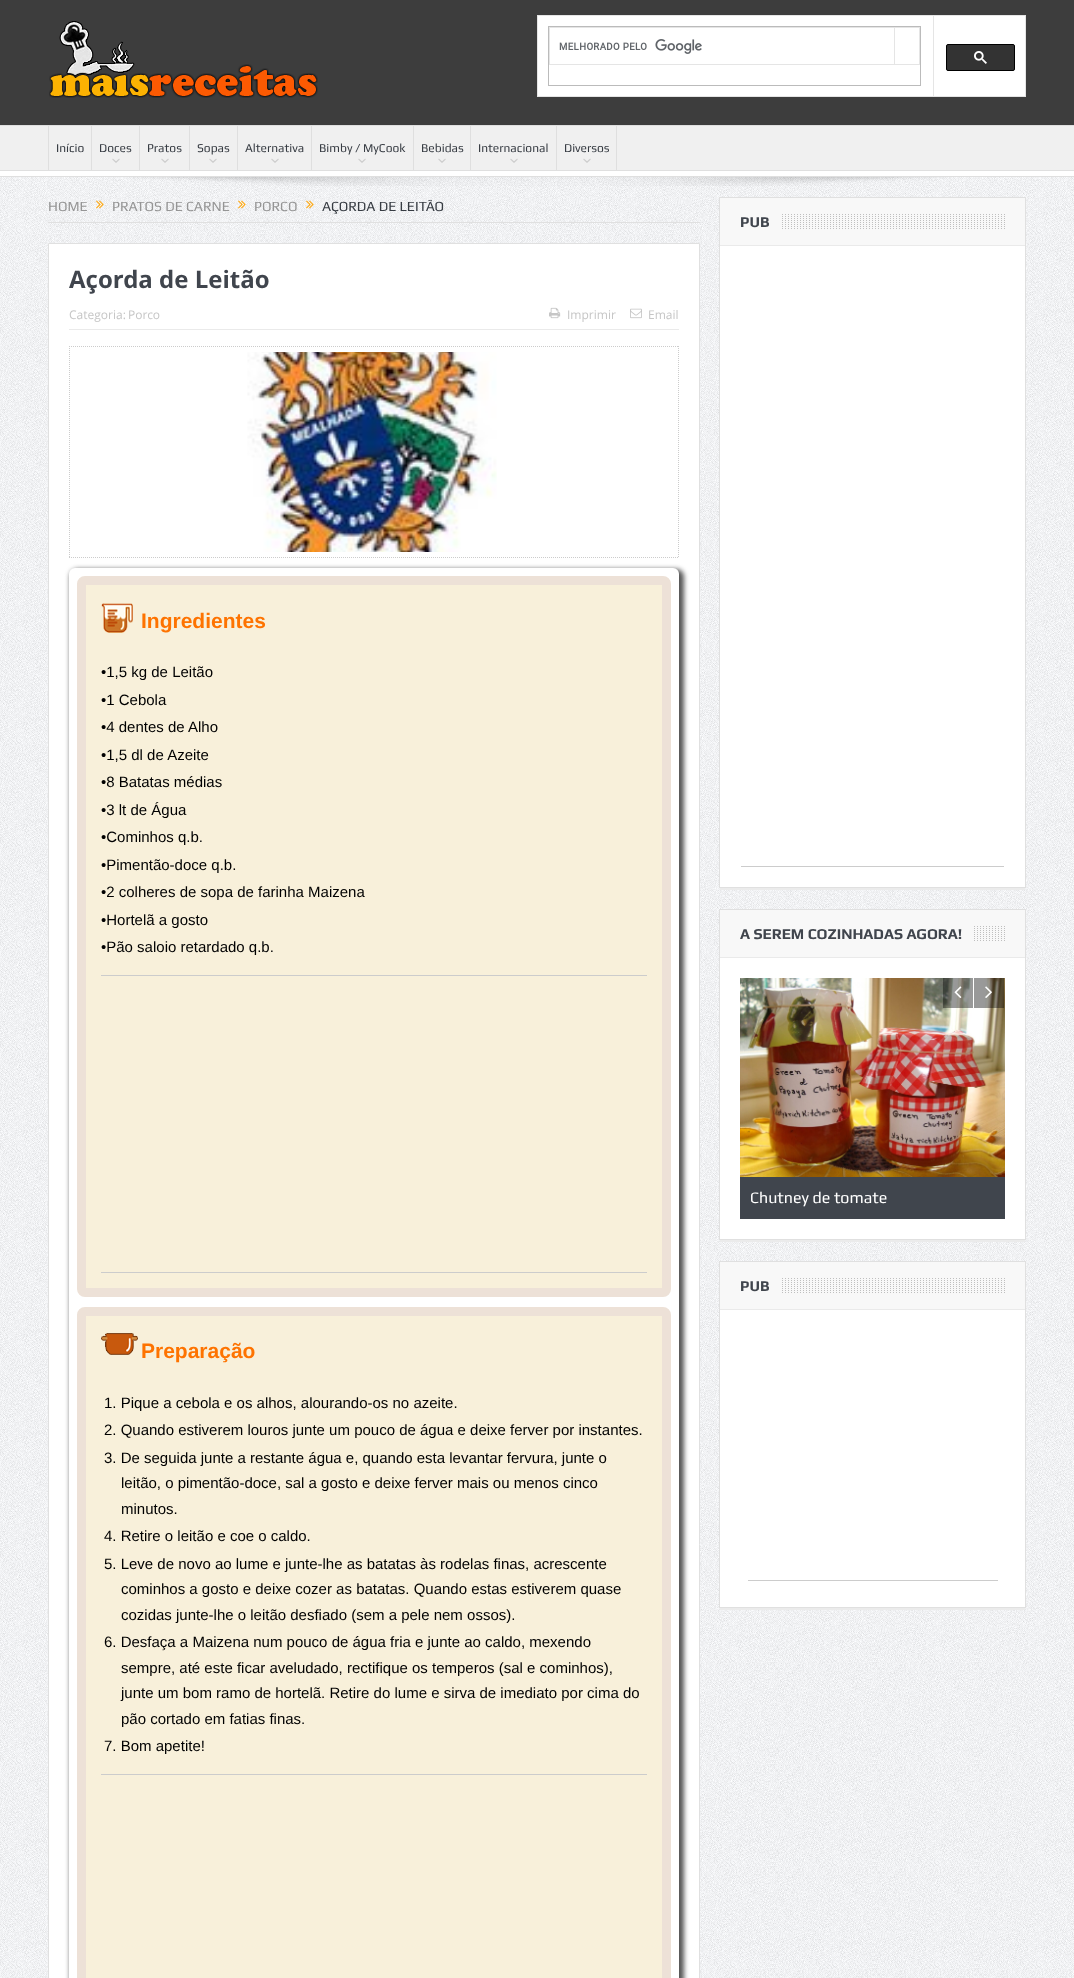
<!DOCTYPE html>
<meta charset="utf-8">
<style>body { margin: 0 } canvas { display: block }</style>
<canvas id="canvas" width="1074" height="1978"></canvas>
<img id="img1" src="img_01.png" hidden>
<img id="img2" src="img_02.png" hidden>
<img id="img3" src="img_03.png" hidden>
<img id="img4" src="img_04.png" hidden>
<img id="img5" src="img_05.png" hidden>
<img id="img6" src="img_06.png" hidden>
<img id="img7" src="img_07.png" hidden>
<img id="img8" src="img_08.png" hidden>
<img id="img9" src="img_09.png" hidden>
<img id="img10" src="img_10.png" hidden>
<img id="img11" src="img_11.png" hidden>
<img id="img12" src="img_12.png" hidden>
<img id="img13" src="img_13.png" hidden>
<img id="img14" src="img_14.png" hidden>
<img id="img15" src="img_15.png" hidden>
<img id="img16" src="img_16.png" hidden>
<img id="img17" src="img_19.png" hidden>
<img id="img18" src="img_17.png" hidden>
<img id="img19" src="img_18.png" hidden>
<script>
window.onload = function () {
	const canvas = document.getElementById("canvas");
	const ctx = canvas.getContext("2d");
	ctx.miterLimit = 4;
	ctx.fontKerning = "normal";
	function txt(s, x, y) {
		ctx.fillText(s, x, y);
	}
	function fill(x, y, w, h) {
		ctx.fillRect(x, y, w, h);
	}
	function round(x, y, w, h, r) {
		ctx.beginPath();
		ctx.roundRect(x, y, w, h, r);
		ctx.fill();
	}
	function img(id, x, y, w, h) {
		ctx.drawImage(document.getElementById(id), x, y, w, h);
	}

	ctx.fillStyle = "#FFFFFF";
	fill(0, 0, 1074, 1978);
	img("img1", 0, 177, 1074, 1801);
	ctx.fillStyle = "#3D3D3D";
	fill(0, 0, 1074, 125);
	img("img2", 49, 21, 269, 77);
	ctx.fillStyle = "#FFFFFF";
	fill(538, 16, 487, 80);
	ctx.fillStyle = "#E5E5E5";
	fill(933, 15, 93, 1);
	fill(1025, 15, 1, 82);
	fill(933, 96, 93, 1);
	fill(933, 15, 1, 82);
	fill(537, 15, 397, 1);
	fill(537, 96, 397, 1);
	fill(537, 15, 1, 82);
	ctx.strokeStyle = "#BBBBBB";
	ctx.strokeRect(548.5, 26.5, 372, 59);
	fill(894, 27, 26, 1);
	fill(919, 27, 1, 38);
	fill(894, 64, 26, 1);
	fill(894, 27, 1, 38);
	fill(549, 27, 346, 1);
	fill(549, 64, 346, 1);
	fill(549, 27, 1, 38);
	img("img3", 559, 39, 143, 15);
	ctx.fillStyle = "#333333";
	ctx.beginPath();
	ctx.roundRect(946.5, 44.5, 68, 26, 1.5);
	ctx.fill();
	ctx.strokeStyle = "#000000";
	ctx.stroke();
	img("img4", 974, 51, 13, 13);
	ctx.fillStyle = "#DFDFDF";
	fill(0, 125, 1074, 1);
	fill(0, 176, 1074, 1);
	ctx.fillStyle = "#F0F0F0";
	fill(0, 126, 1074, 44);
	ctx.fillStyle = "#DFDFDF";
	fill(0, 170, 1074, 1);
	fill(48, 126, 1, 44);
	fill(91, 126, 1, 44);
	img("img5", 112, 158, 8, 5);
	fill(139, 126, 1, 44);
	img("img5", 161, 158, 8, 5);
	fill(189, 126, 1, 44);
	img("img5", 209, 158, 8, 5);
	fill(237, 126, 1, 44);
	img("img5", 271, 158, 8, 5);
	fill(311, 126, 1, 44);
	img("img5", 358, 158, 8, 5);
	fill(413, 126, 1, 44);
	img("img5", 438, 158, 8, 5);
	fill(470, 126, 1, 44);
	img("img5", 510, 158, 8, 5);
	fill(616, 126, 1, 44);
	fill(556, 126, 1, 44);
	img("img5", 583, 158, 8, 5);
	img("img6", 129, 177, 819, 9);
	ctx.fillStyle = "#E0E0E0";
	fill(48, 222, 652, 1);
	img("img7", 96, 200, 8, 9);
	img("img8", 238, 200, 8, 9);
	img("img9", 306, 200, 8, 9);
	ctx.fillStyle = "#FFFFFF";
	ctx.beginPath();
	ctx.rect(48.5, 243.5, 651, 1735);
	ctx.fill();
	ctx.strokeStyle = "#E0E0E0";
	ctx.stroke();
	ctx.fillStyle = "#EAEAEA";
	fill(69, 329, 610, 1);
	img("img10", 549, 307, 12, 12);
	img("img11", 630, 308, 12, 11);
	ctx.beginPath();
	ctx.moveTo(69, 346.5);
	ctx.lineTo(679, 346.5);
	ctx.strokeStyle = "#CCCCCC";
	ctx.setLineDash([1, 1]);
	ctx.stroke();
	ctx.beginPath();
	ctx.moveTo(678.5, 346);
	ctx.lineTo(678.5, 558);
	ctx.stroke();
	ctx.beginPath();
	ctx.moveTo(69, 557.5);
	ctx.lineTo(679, 557.5);
	ctx.stroke();
	ctx.beginPath();
	ctx.moveTo(69.5, 346);
	ctx.lineTo(69.5, 558);
	ctx.stroke();
	img("img12", 247, 352, 250, 200);
	ctx.fillStyle = "#555555";
	ctx.filter = "blur(2.5px)";
	ctx.beginPath();
	ctx.roundRect(70, 569, 614, 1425, 8);
	ctx.fill();
	ctx.filter = "none";
	ctx.fillStyle = "#FFFFFF";
	round(69, 568, 610, 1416, 6);
	ctx.fillStyle = "#F8F0DA";
	ctx.beginPath();
	ctx.roundRect(81.5, 580.5, 585, 712, 3.5);
	ctx.fill();
	ctx.strokeStyle = "#EDE1D7";
	ctx.lineWidth = 9;
	ctx.setLineDash([]);
	ctx.stroke();
	img("img13", 101, 603, 32, 30);
	ctx.fillStyle = "#CCCCCC";
	fill(101, 975, 546, 1);
	fill(101, 1272, 546, 1);
	ctx.fillStyle = "#F8F0DA";
	ctx.beginPath();
	ctx.roundRect(81.5, 1311.5, 585, 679, 3.5);
	ctx.fill();
	ctx.stroke();
	img("img14", 101, 1333, 37, 22);
	ctx.fillStyle = "#CCCCCC";
	fill(101, 1774, 546, 1);
	ctx.fillStyle = "#FFFFFF";
	fill(720, 246, 305, 641);
	ctx.strokeStyle = "#E0E0E0";
	ctx.lineWidth = 1;
	ctx.strokeRect(719.5, 197.5, 306, 690);
	ctx.fillStyle = "#F8F8F8";
	fill(720, 198, 305, 47);
	ctx.fillStyle = "#EAEAEA";
	fill(720, 245, 305, 1);
	img("img15", 782, 214, 223, 15);
	ctx.fillStyle = "#CCCCCC";
	fill(741, 866, 263, 1);
	ctx.fillStyle = "#EBEBEB";
	fill(720, 888, 305, 2);
	ctx.fillStyle = "#FFFFFF";
	fill(720, 958, 305, 281);
	ctx.strokeRect(719.5, 909.5, 306, 330);
	ctx.fillStyle = "#F8F8F8";
	fill(720, 910, 305, 47);
	ctx.fillStyle = "#EAEAEA";
	fill(720, 957, 305, 1);
	img("img16", 974, 926, 31, 15);
	img("img17", 740, 978, 265, 199);
	ctx.fillStyle = "rgba(0, 0, 0, 0.4)";
	fill(943, 978, 30, 30);
	img("img18", 954, 986, 8, 12);
	fill(974, 978, 30, 30);
	img("img19", 985, 986, 7, 12);
	ctx.fillStyle = "#40454D";
	fill(740, 1177, 265, 42);
	ctx.fillStyle = "#EBEBEB";
	fill(720, 1240, 305, 2);
	ctx.fillStyle = "#FFFFFF";
	fill(720, 1310, 305, 297);
	ctx.strokeRect(719.5, 1261.5, 306, 346);
	ctx.fillStyle = "#F8F8F8";
	fill(720, 1262, 305, 47);
	ctx.fillStyle = "#EAEAEA";
	fill(720, 1309, 305, 1);
	img("img15", 782, 1278, 223, 15);
	ctx.fillStyle = "#CCCCCC";
	fill(748, 1580, 250, 1);
	ctx.fillStyle = "#EBEBEB";
	fill(720, 1608, 305, 2);
	ctx.font = "12px Play";
	ctx.fillStyle = "#373C43";
	txt("Início", 56, 152);
	txt("Doces", 99, 152);
	txt("Pratos", 147, 152);
	txt("Sopas", 197, 152);
	txt("Alternativa", 245, 152);
	txt("Bimby / MyCook", 319, 152);
	txt("Bebidas", 421, 152);
	txt("Internacional", 478, 152);
	txt("Diversos", 564, 152);
	ctx.font = "14px Play";
	ctx.fillStyle = "#959595";
	txt("HOME", 48, 211);
	txt("PRATOS DE CARNE", 112, 211);
	txt("PORCO", 254, 211);
	ctx.fillStyle = "#373C43";
	txt("AÇORDA DE LEITÃO", 322, 211);
	ctx.font = "bold 24px Open Sans";
	ctx.fillStyle = "#40454D";
	txt("Açorda de Leitão", 69, 288);
	ctx.font = "12px Open Sans";
	ctx.fillStyle = "#C6C6C6";
	txt("Categoria:", 69, 319);
	txt("Porco", 128, 319);
	txt("Imprimir", 567, 319);
	txt("Email", 648, 319);
	ctx.font = "bold 21px Liberation Sans";
	ctx.fillStyle = "#FE7300";
	txt("Ingredientes", 141, 628);
	ctx.font = "15px Liberation Sans";
	ctx.fillStyle = "#000000";
	txt("•1,5 kg de Leitão", 101, 677);
	txt("•1 Cebola", 101, 705);
	txt("•4 dentes de Alho", 101, 732);
	txt("•1,5 dl de Azeite", 101, 760);
	txt("•8 Batatas médias", 101, 787);
	txt("•3 lt de Água", 101, 815);
	txt("•Cominhos q.b.", 101, 842);
	txt("•Pimentão-doce q.b.", 101, 870);
	txt("•2 colheres de sopa de farinha Maizena", 101, 897);
	txt("•Hortelã a gosto", 101, 925);
	txt("•Pão saloio retardado q.b.", 101, 952);
	ctx.font = "bold 21px Liberation Sans";
	ctx.fillStyle = "#FE7300";
	txt("Preparação", 141, 1358);
	ctx.font = "15px Liberation Sans";
	ctx.fillStyle = "#000000";
	txt("1. Pique a cebola e os alhos, alourando-os no azeite.", 104, 1408);
	txt("2. Quando estiverem louros junte um pouco de água e deixe ferver por instantes.", 104, 1435);
	txt("3. De seguida junte a restante água e, quando esta levantar fervura, junte o", 104, 1463);
	txt("leitão, o pimentão-doce, sal a gosto e deixe ferver mais ou menos cinco", 121, 1488);
	txt("minutos.", 121, 1514);
	txt("4. Retire o leitão e coe o caldo.", 104, 1541);
	txt("5. Leve de novo ao lume e junte-lhe as batatas às rodelas finas, acrescente", 104, 1569);
	txt("cominhos a gosto e deixe cozer as batatas. Quando estas estiverem quase", 121, 1594);
	txt("cozidas junte-lhe o leitão desfiado (sem a pele nem ossos).", 121, 1620);
	txt("6. Desfaça a Maizena num pouco de água fria e junte ao caldo, mexendo", 104, 1647);
	txt("sempre, até este ficar aveludado, rectifique os temperos (sal e cominhos),", 121, 1673);
	txt("junte um bom ramo de hortelã. Retire do lume e sirva de imediato por cima do", 121, 1698);
	txt("pão cortado em fatias finas.", 121, 1724);
	txt("7. Bom apetite!", 104, 1751);
	ctx.font = "bold 15px Play";
	ctx.fillStyle = "#40454D";
	txt("PUB", 740, 227);
	txt("A SEREM COZINHADAS AGORA!", 740, 939);
	ctx.font = "16px Play";
	ctx.fillStyle = "#FFFFFF";
	txt("Chutney de tomate", 750, 1203);
	ctx.font = "bold 15px Play";
	ctx.fillStyle = "#40454D";
	txt("PUB", 740, 1291);
};
</script>
